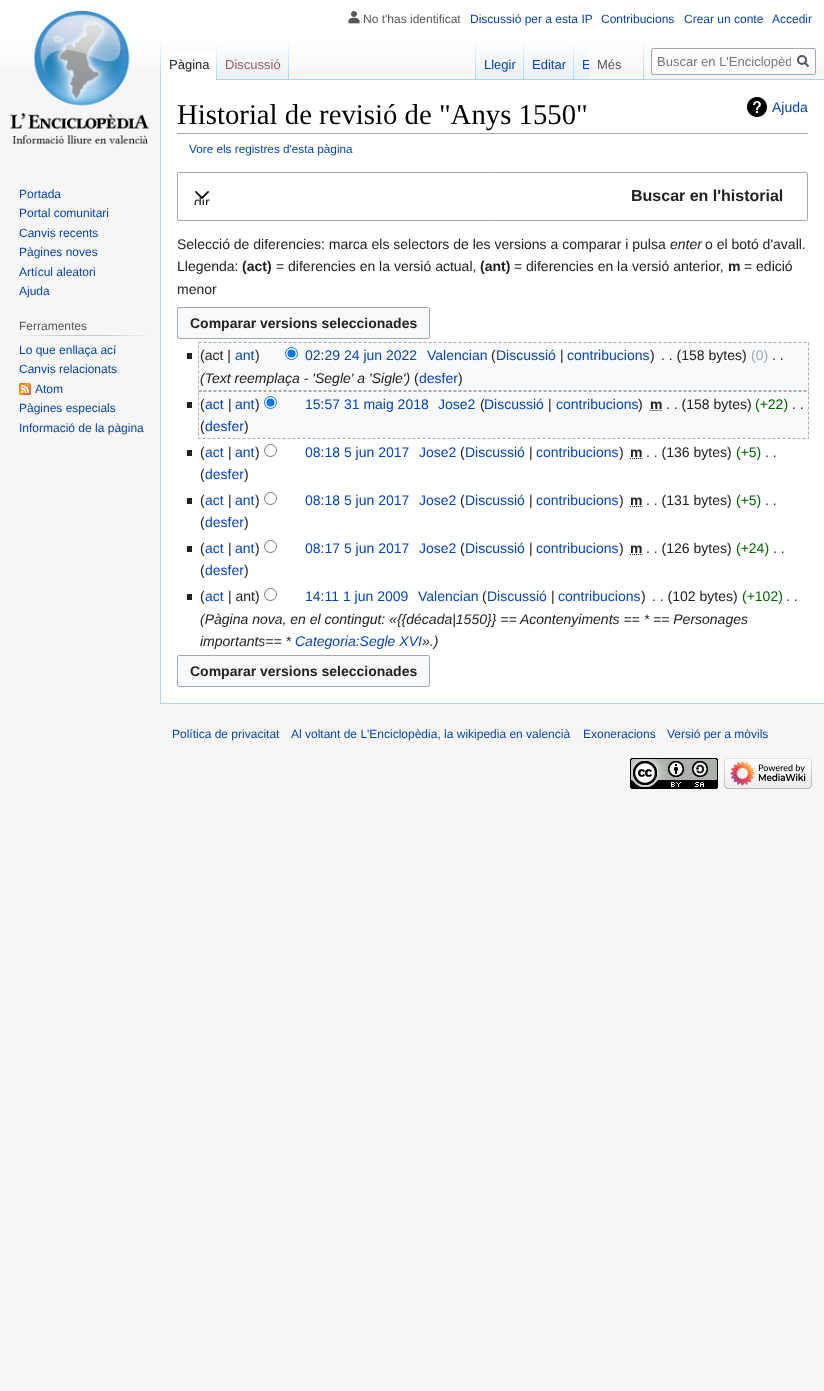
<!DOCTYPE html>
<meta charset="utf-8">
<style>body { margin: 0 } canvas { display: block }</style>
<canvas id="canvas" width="824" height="1391"></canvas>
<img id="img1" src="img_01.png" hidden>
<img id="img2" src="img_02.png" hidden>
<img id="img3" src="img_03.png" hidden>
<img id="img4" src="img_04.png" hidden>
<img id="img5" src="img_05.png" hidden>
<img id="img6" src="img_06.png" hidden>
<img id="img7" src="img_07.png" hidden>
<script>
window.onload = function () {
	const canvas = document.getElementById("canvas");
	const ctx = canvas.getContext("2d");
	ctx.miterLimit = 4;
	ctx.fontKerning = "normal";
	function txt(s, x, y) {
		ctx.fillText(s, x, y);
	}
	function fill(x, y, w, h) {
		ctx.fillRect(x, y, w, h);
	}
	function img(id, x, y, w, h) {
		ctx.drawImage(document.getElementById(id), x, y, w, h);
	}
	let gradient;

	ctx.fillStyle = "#F6F6F6";
	fill(0, 0, 824, 1391);
	gradient = ctx.createLinearGradient(412, 0, 412, 80);
	gradient.addColorStop(0.5, "#FFFFFF");
	gradient.addColorStop(1, "#F6F6F6");
	ctx.fillStyle = gradient;
	fill(0, 0, 824, 69);
	img("img1", 348, 11, 12, 13);
	ctx.fillStyle = "#A7D7F9";
	fill(160, 703, 664, 1);
	fill(160, 79, 1, 625);
	gradient = ctx.createLinearGradient(161, 40, 161, 80);
	gradient.addColorStop(0, "rgba(167, 215, 249, 0)");
	gradient.addColorStop(1, "#A7D7F9");
	ctx.fillStyle = gradient;
	fill(160, 40, 1, 40);
	ctx.fillStyle = "#FFFFFF";
	fill(161, 51, 55, 29);
	gradient = ctx.createLinearGradient(217, 40, 217, 80);
	gradient.addColorStop(0, "#FFFFFF");
	gradient.addColorStop(1, "#A7D7F9");
	ctx.fillStyle = gradient;
	fill(216, 40, 1, 40);
	gradient = ctx.createLinearGradient(253, 80, 253, 40);
	gradient.addColorStop(0, "#77C1F6");
	gradient.addColorStop(0.03, "#E8F2F8");
	gradient.addColorStop(1, "#FFFFFF");
	ctx.fillStyle = gradient;
	fill(217, 46, 72, 34);
	gradient = ctx.createLinearGradient(289, 40, 289, 80);
	gradient.addColorStop(0, "rgba(167, 215, 249, 0)");
	gradient.addColorStop(1, "#A7D7F9");
	ctx.fillStyle = gradient;
	fill(288, 40, 1, 40);
	ctx.fillStyle = "#A7D7F9";
	fill(289, 79, 535, 1);
	gradient = ctx.createLinearGradient(476, 40, 476, 80);
	gradient.addColorStop(0, "rgba(167, 215, 249, 0)");
	gradient.addColorStop(1, "#A7D7F9");
	ctx.fillStyle = gradient;
	fill(475, 40, 1, 40);
	gradient = ctx.createLinearGradient(500, 80, 500, 40);
	gradient.addColorStop(0, "#77C1F6");
	gradient.addColorStop(0.03, "#E8F2F8");
	gradient.addColorStop(1, "#FFFFFF");
	ctx.fillStyle = gradient;
	fill(476, 46, 48, 33);
	gradient = ctx.createLinearGradient(524, 40, 524, 80);
	gradient.addColorStop(0, "rgba(167, 215, 249, 0)");
	gradient.addColorStop(1, "#A7D7F9");
	ctx.fillStyle = gradient;
	fill(523, 40, 1, 40);
	gradient = ctx.createLinearGradient(549, 80, 549, 40);
	gradient.addColorStop(0, "#77C1F6");
	gradient.addColorStop(0.03, "#E8F2F8");
	gradient.addColorStop(1, "#FFFFFF");
	ctx.fillStyle = gradient;
	fill(524, 46, 50, 33);
	gradient = ctx.createLinearGradient(574, 40, 574, 80);
	gradient.addColorStop(0, "rgba(167, 215, 249, 0)");
	gradient.addColorStop(1, "#A7D7F9");
	ctx.fillStyle = gradient;
	fill(573, 40, 1, 40);
	gradient = ctx.createLinearGradient(582, 80, 582, 40);
	gradient.addColorStop(0, "#77C1F6");
	gradient.addColorStop(0.03, "#E8F2F8");
	gradient.addColorStop(1, "#FFFFFF");
	ctx.fillStyle = gradient;
	fill(574, 46, 15, 33);
	gradient = ctx.createLinearGradient(644, 40, 644, 80);
	gradient.addColorStop(0, "rgba(167, 215, 249, 0)");
	gradient.addColorStop(1, "#A7D7F9");
	ctx.fillStyle = gradient;
	fill(643, 40, 1, 40);
	ctx.fillStyle = "rgba(255, 255, 255, 0.5)";
	ctx.beginPath();
	ctx.roundRect(651.5, 48.5, 164, 26, 1.5);
	ctx.fill();
	ctx.strokeStyle = "#A2A9B1";
	ctx.stroke();
	ctx.beginPath();
	ctx.moveTo(808.5, 66.5);
	ctx.lineTo(804.5, 62.5);
	ctx.strokeStyle = "#54595D";
	ctx.lineWidth = 2;
	ctx.stroke();
	ctx.beginPath();
	ctx.arc(802, 60, 4, 0, Math.PI * 2);
	ctx.stroke();
	img("img2", 10, 10, 139, 135);
	gradient = ctx.createLinearGradient(19, 336, 150, 336);
	gradient.addColorStop(0, "#F6F6F6");
	gradient.addColorStop(0.33, "#C8CCD1");
	gradient.addColorStop(0.66, "#C8CCD1");
	gradient.addColorStop(1, "#F6F6F6");
	ctx.fillStyle = gradient;
	fill(19, 335, 131, 1);
	img("img3", 19, 383, 12, 12);
	ctx.fillStyle = "#FFFFFF";
	fill(161, 80, 663, 623);
	ctx.fillStyle = "#A2A9B1";
	fill(177, 133, 631, 1);
	img("img4", 747, 97, 20, 20);
	ctx.beginPath();
	ctx.roundRect(177.5, 172.5, 630, 48, 1.5);
	ctx.strokeStyle = "#A2A9B1";
	ctx.lineWidth = 1;
	ctx.stroke();
	img("img5", 195, 191, 15, 8);
	ctx.fillStyle = "#F8F9FA";
	ctx.beginPath();
	ctx.roundRect(177.5, 307.5, 252, 31, 1.5);
	ctx.fill();
	ctx.stroke();
	fill(199, 343, 609, 47);
	ctx.fillStyle = "#202122";
	fill(187, 353, 5, 6);
	ctx.fillStyle = "#FFFFFF";
	ctx.beginPath();
	ctx.arc(291.5, 353.5, 6, 0, Math.PI * 2);
	ctx.fill();
	ctx.strokeStyle = "#0075FF";
	ctx.stroke();
	ctx.fillStyle = "#0075FF";
	ctx.beginPath();
	ctx.arc(291.5, 353.5, 4, 0, Math.PI * 2);
	ctx.fill();
	ctx.fillStyle = "#F8F9FA";
	fill(199, 392, 609, 46);
	ctx.fillStyle = "#202122";
	fill(187, 402, 5, 6);
	ctx.fillStyle = "#FFFFFF";
	ctx.beginPath();
	ctx.arc(270.5, 402.5, 6, 0, Math.PI * 2);
	ctx.fill();
	ctx.stroke();
	ctx.fillStyle = "#0075FF";
	ctx.beginPath();
	ctx.arc(270.5, 402.5, 4, 0, Math.PI * 2);
	ctx.fill();
	ctx.beginPath();
	ctx.moveTo(649.5, 410.5);
	ctx.lineTo(662, 410.5);
	ctx.strokeStyle = "#202122";
	ctx.setLineDash([1, 1]);
	ctx.stroke();
	ctx.fillStyle = "#202122";
	fill(187, 450, 5, 6);
	ctx.beginPath();
	ctx.arc(270.5, 450.5, 6, 0, Math.PI * 2);
	ctx.strokeStyle = "#767676";
	ctx.setLineDash([]);
	ctx.stroke();
	ctx.beginPath();
	ctx.moveTo(630, 458.5);
	ctx.lineTo(642.5, 458.5);
	ctx.strokeStyle = "#202122";
	ctx.setLineDash([1, 1]);
	ctx.stroke();
	fill(187, 498, 5, 6);
	ctx.beginPath();
	ctx.arc(270.5, 498.5, 6, 0, Math.PI * 2);
	ctx.strokeStyle = "#767676";
	ctx.setLineDash([]);
	ctx.stroke();
	ctx.beginPath();
	ctx.moveTo(630, 506.5);
	ctx.lineTo(642.5, 506.5);
	ctx.strokeStyle = "#202122";
	ctx.setLineDash([1, 1]);
	ctx.stroke();
	fill(187, 546, 5, 6);
	ctx.beginPath();
	ctx.arc(270.5, 546.5, 6, 0, Math.PI * 2);
	ctx.strokeStyle = "#767676";
	ctx.setLineDash([]);
	ctx.stroke();
	ctx.beginPath();
	ctx.moveTo(630, 554.5);
	ctx.lineTo(642.5, 554.5);
	ctx.strokeStyle = "#202122";
	ctx.setLineDash([1, 1]);
	ctx.stroke();
	fill(187, 594, 5, 6);
	ctx.beginPath();
	ctx.arc(270.5, 594.5, 6, 0, Math.PI * 2);
	ctx.strokeStyle = "#767676";
	ctx.setLineDash([]);
	ctx.stroke();
	ctx.fillStyle = "#F8F9FA";
	ctx.beginPath();
	ctx.roundRect(177.5, 655.5, 252, 31, 1.5);
	ctx.fill();
	ctx.strokeStyle = "#A2A9B1";
	ctx.stroke();
	img("img6", 630, 758, 88, 31);
	img("img7", 724, 758, 88, 31);
	ctx.font = "12px Liberation Sans";
	ctx.fillStyle = "#54595D";
	txt("No t'has identificat", 363, 23);
	ctx.fillStyle = "#0645AD";
	txt("Discussió per a esta IP", 470, 23);
	txt("Contribucions", 601, 23);
	txt("Crear un conte", 684, 23);
	txt("Accedir", 772, 23);
	ctx.font = "13px Liberation Sans";
	ctx.fillStyle = "#202122";
	txt("Pàgina", 169, 69);
	ctx.fillStyle = "#A55858";
	txt("Discussió", 225, 69);
	ctx.fillStyle = "#0645AD";
	txt("Llegir", 484, 69);
	txt("Editar", 532, 69);
	ctx.save();
	ctx.beginPath();
	ctx.rect(574, 40, 15, 40);
	ctx.clip();
	txt("E", 582, 69);
	ctx.restore();
	ctx.fillStyle = "#54595D";
	txt("Més", 597, 69);
	ctx.save();
	ctx.beginPath();
	ctx.rect(657, 54, 134, 15);
	ctx.clip();
	ctx.fillStyle = "#72777D";
	txt("Buscar en L'Enciclopèd", 657, 66);
	ctx.restore();
	ctx.font = "12px Liberation Sans";
	ctx.fillStyle = "#0645AD";
	txt("Portada", 19, 198);
	txt("Portal comunitari", 19, 217);
	txt("Canvis recents", 19, 237);
	txt("Pàgines noves", 19, 256);
	txt("Artícul aleatori", 19, 276);
	txt("Ajuda", 19, 295);
	ctx.fillStyle = "#54595D";
	txt("Ferramentes", 19, 330);
	ctx.fillStyle = "#0645AD";
	txt("Lo que enllaça ací", 19, 354);
	txt("Canvis relacionats", 19, 373);
	txt("Atom", 35, 393);
	txt("Pàgines especials", 19, 412);
	txt("Informació de la pàgina", 19, 432);
	ctx.font = "28.75px Liberation Serif";
	ctx.fillStyle = "#000000";
	txt("Historial de revisió de \"Anys 1550\"", 177, 124);
	ctx.font = "14px Liberation Sans";
	ctx.fillStyle = "#0645AD";
	txt("Ajuda", 772, 112);
	ctx.font = "11.75px Liberation Sans";
	txt("Vore els registres d'esta pàgina", 189, 153);
	ctx.save();
	ctx.beginPath();
	ctx.rect(194, 185, 16, 20);
	ctx.clip();
	ctx.font = "14px Liberation Sans";
	ctx.fillStyle = "#202122";
	txt("dir", 194, 207);
	ctx.restore();
	ctx.font = "bold 16px Liberation Sans";
	ctx.fillStyle = "#202122";
	txt("Buscar en l'historial", 631, 201);
	ctx.font = "14px Liberation Sans";
	txt("Selecció de diferencies: marca els selectors de les versions a comparar i pulsa", 177, 249);
	ctx.font = "italic 14px Liberation Sans";
	txt("enter", 670, 249);
	ctx.font = "14px Liberation Sans";
	txt("o el botó d'avall.", 705, 249);
	txt("Llegenda:", 177, 271);
	ctx.font = "bold 14px Liberation Sans";
	txt("(act)", 242, 271);
	ctx.font = "14px Liberation Sans";
	txt("= diferencies en la versió actual,", 276, 271);
	ctx.font = "bold 14px Liberation Sans";
	txt("(ant)", 480, 271);
	ctx.font = "14px Liberation Sans";
	txt("= diferencies en la versió anterior,", 514, 271);
	ctx.font = "bold 14px Liberation Sans";
	txt("m", 728, 271);
	ctx.font = "14px Liberation Sans";
	txt("= edició", 744, 271);
	txt("menor", 177, 294);
	ctx.font = "bold 14px Liberation Sans";
	txt("Comparar versions seleccionades", 190, 328);
	ctx.font = "14px Liberation Sans";
	txt("(act |", 200, 360);
	ctx.fillStyle = "#0645AD";
	txt("ant", 235, 360);
	ctx.fillStyle = "#202122";
	txt(")", 255, 360);
	ctx.fillStyle = "#0645AD";
	txt("02:29 24 jun 2022", 305, 360);
	txt("Valencian", 427, 360);
	ctx.fillStyle = "#202122";
	txt("(", 491, 360);
	ctx.fillStyle = "#0645AD";
	txt("Discussió", 496, 360);
	ctx.fillStyle = "#202122";
	txt("|", 560, 360);
	ctx.fillStyle = "#0645AD";
	txt("contribucions", 567, 360);
	ctx.fillStyle = "#202122";
	txt(")", 650, 360);
	txt(". . (158 bytes)", 661, 360);
	ctx.fillStyle = "#A2A9B1";
	txt("(0)", 751, 360);
	ctx.fillStyle = "#202122";
	txt(". .", 772, 360);
	ctx.font = "italic 14px Liberation Sans";
	txt("(Text reemplaça - 'Segle' a 'Sigle')", 200, 383);
	ctx.font = "14px Liberation Sans";
	txt("(", 414, 383);
	ctx.fillStyle = "#0645AD";
	txt("desfer", 419, 383);
	ctx.fillStyle = "#202122";
	txt(")", 458, 383);
	ctx.beginPath();
	ctx.moveTo(198.5, 342.5);
	ctx.lineTo(808.5, 342.5);
	ctx.lineTo(808.5, 390.5);
	ctx.lineTo(198.5, 390.5);
	ctx.closePath();
	ctx.setLineDash([3, 2]);
	ctx.stroke();
	txt("(", 200, 409);
	ctx.fillStyle = "#0645AD";
	txt("act", 205, 409);
	ctx.fillStyle = "#202122";
	txt("|", 228, 409);
	ctx.fillStyle = "#0645AD";
	txt("ant", 235, 409);
	ctx.fillStyle = "#202122";
	txt(")", 255, 409);
	ctx.fillStyle = "#0645AD";
	txt("15:57 31 maig 2018", 305, 409);
	txt("Jose2", 438, 409);
	ctx.fillStyle = "#202122";
	txt("(", 480, 409);
	ctx.fillStyle = "#0645AD";
	txt("Discussió", 484, 409);
	ctx.fillStyle = "#202122";
	txt("|", 548, 409);
	ctx.fillStyle = "#0645AD";
	txt("contribucions", 556, 409);
	ctx.fillStyle = "#202122";
	txt(")", 638, 409);
	ctx.font = "bold 14px Liberation Sans";
	txt("m", 650, 409);
	ctx.font = "14px Liberation Sans";
	txt(". . (158 bytes)", 666, 409);
	ctx.fillStyle = "#006400";
	txt("(+22)", 755, 409);
	ctx.fillStyle = "#202122";
	txt(". .", 792, 409);
	txt("(", 200, 431);
	ctx.fillStyle = "#0645AD";
	txt("desfer", 205, 431);
	ctx.fillStyle = "#202122";
	txt(")", 244, 431);
	ctx.beginPath();
	ctx.moveTo(198.5, 391.5);
	ctx.lineTo(808.5, 391.5);
	ctx.lineTo(808.5, 438.5);
	ctx.lineTo(198.5, 438.5);
	ctx.closePath();
	ctx.stroke();
	txt("(", 200, 457);
	ctx.fillStyle = "#0645AD";
	txt("act", 205, 457);
	ctx.fillStyle = "#202122";
	txt("|", 228, 457);
	ctx.fillStyle = "#0645AD";
	txt("ant", 235, 457);
	ctx.fillStyle = "#202122";
	txt(")", 255, 457);
	ctx.fillStyle = "#0645AD";
	txt("08:18 5 jun 2017", 305, 457);
	txt("Jose2", 419, 457);
	ctx.fillStyle = "#202122";
	txt("(", 460, 457);
	ctx.fillStyle = "#0645AD";
	txt("Discussió", 465, 457);
	ctx.fillStyle = "#202122";
	txt("|", 529, 457);
	ctx.fillStyle = "#0645AD";
	txt("contribucions", 536, 457);
	ctx.fillStyle = "#202122";
	txt(")", 619, 457);
	ctx.font = "bold 14px Liberation Sans";
	txt("m", 630, 457);
	ctx.font = "14px Liberation Sans";
	txt(". . (136 bytes)", 646, 457);
	ctx.fillStyle = "#006400";
	txt("(+5)", 736, 457);
	ctx.fillStyle = "#202122";
	txt(". .", 765, 457);
	txt("(", 200, 479);
	ctx.fillStyle = "#0645AD";
	txt("desfer", 205, 479);
	ctx.fillStyle = "#202122";
	txt(")", 244, 479);
	txt("(", 200, 505);
	ctx.fillStyle = "#0645AD";
	txt("act", 205, 505);
	ctx.fillStyle = "#202122";
	txt("|", 228, 505);
	ctx.fillStyle = "#0645AD";
	txt("ant", 235, 505);
	ctx.fillStyle = "#202122";
	txt(")", 255, 505);
	ctx.fillStyle = "#0645AD";
	txt("08:18 5 jun 2017", 305, 505);
	txt("Jose2", 419, 505);
	ctx.fillStyle = "#202122";
	txt("(", 460, 505);
	ctx.fillStyle = "#0645AD";
	txt("Discussió", 465, 505);
	ctx.fillStyle = "#202122";
	txt("|", 529, 505);
	ctx.fillStyle = "#0645AD";
	txt("contribucions", 536, 505);
	ctx.fillStyle = "#202122";
	txt(")", 619, 505);
	ctx.font = "bold 14px Liberation Sans";
	txt("m", 630, 505);
	ctx.font = "14px Liberation Sans";
	txt(". . (131 bytes)", 646, 505);
	ctx.fillStyle = "#006400";
	txt("(+5)", 736, 505);
	ctx.fillStyle = "#202122";
	txt(". .", 765, 505);
	txt("(", 200, 527);
	ctx.fillStyle = "#0645AD";
	txt("desfer", 205, 527);
	ctx.fillStyle = "#202122";
	txt(")", 244, 527);
	txt("(", 200, 553);
	ctx.fillStyle = "#0645AD";
	txt("act", 205, 553);
	ctx.fillStyle = "#202122";
	txt("|", 228, 553);
	ctx.fillStyle = "#0645AD";
	txt("ant", 235, 553);
	ctx.fillStyle = "#202122";
	txt(")", 255, 553);
	ctx.fillStyle = "#0645AD";
	txt("08:17 5 jun 2017", 305, 553);
	txt("Jose2", 419, 553);
	ctx.fillStyle = "#202122";
	txt("(", 460, 553);
	ctx.fillStyle = "#0645AD";
	txt("Discussió", 465, 553);
	ctx.fillStyle = "#202122";
	txt("|", 529, 553);
	ctx.fillStyle = "#0645AD";
	txt("contribucions", 536, 553);
	ctx.fillStyle = "#202122";
	txt(")", 619, 553);
	ctx.font = "bold 14px Liberation Sans";
	txt("m", 630, 553);
	ctx.font = "14px Liberation Sans";
	txt(". . (126 bytes)", 646, 553);
	ctx.fillStyle = "#006400";
	txt("(+24)", 736, 553);
	ctx.fillStyle = "#202122";
	txt(". .", 773, 553);
	txt("(", 200, 575);
	ctx.fillStyle = "#0645AD";
	txt("desfer", 205, 575);
	ctx.fillStyle = "#202122";
	txt(")", 244, 575);
	txt("(", 200, 601);
	ctx.fillStyle = "#0645AD";
	txt("act", 205, 601);
	ctx.fillStyle = "#202122";
	txt("| ant)", 228, 601);
	ctx.fillStyle = "#0645AD";
	txt("14:11 1 jun 2009", 305, 601);
	txt("Valencian", 418, 601);
	ctx.fillStyle = "#202122";
	txt("(", 482, 601);
	ctx.fillStyle = "#0645AD";
	txt("Discussió", 487, 601);
	ctx.fillStyle = "#202122";
	txt("|", 551, 601);
	ctx.fillStyle = "#0645AD";
	txt("contribucions", 558, 601);
	ctx.fillStyle = "#202122";
	txt(")", 641, 601);
	txt(". . (102 bytes)", 652, 601);
	ctx.fillStyle = "#006400";
	txt("(+102)", 742, 601);
	ctx.fillStyle = "#202122";
	txt(". .", 786, 601);
	ctx.font = "italic 14px Liberation Sans";
	txt("(Pàgina nova, en el contingut: «{{década|1550}} == Acontenyiments == * == Personages", 200, 624);
	txt("importants== *", 200, 646);
	ctx.fillStyle = "#0645AD";
	txt("Categoria:Segle XVI", 295, 646);
	ctx.fillStyle = "#202122";
	txt("».)", 422, 646);
	ctx.font = "bold 14px Liberation Sans";
	txt("Comparar versions seleccionades", 190, 676);
	ctx.font = "12px Liberation Sans";
	ctx.fillStyle = "#0645AD";
	txt("Política de privacitat", 172, 738);
	txt("Al voltant de L'Enciclopèdia, la wikipedia en valencià", 291, 738);
	txt("Exoneracions", 583, 738);
	txt("Versió per a mòvils", 667, 738);
};
</script>
